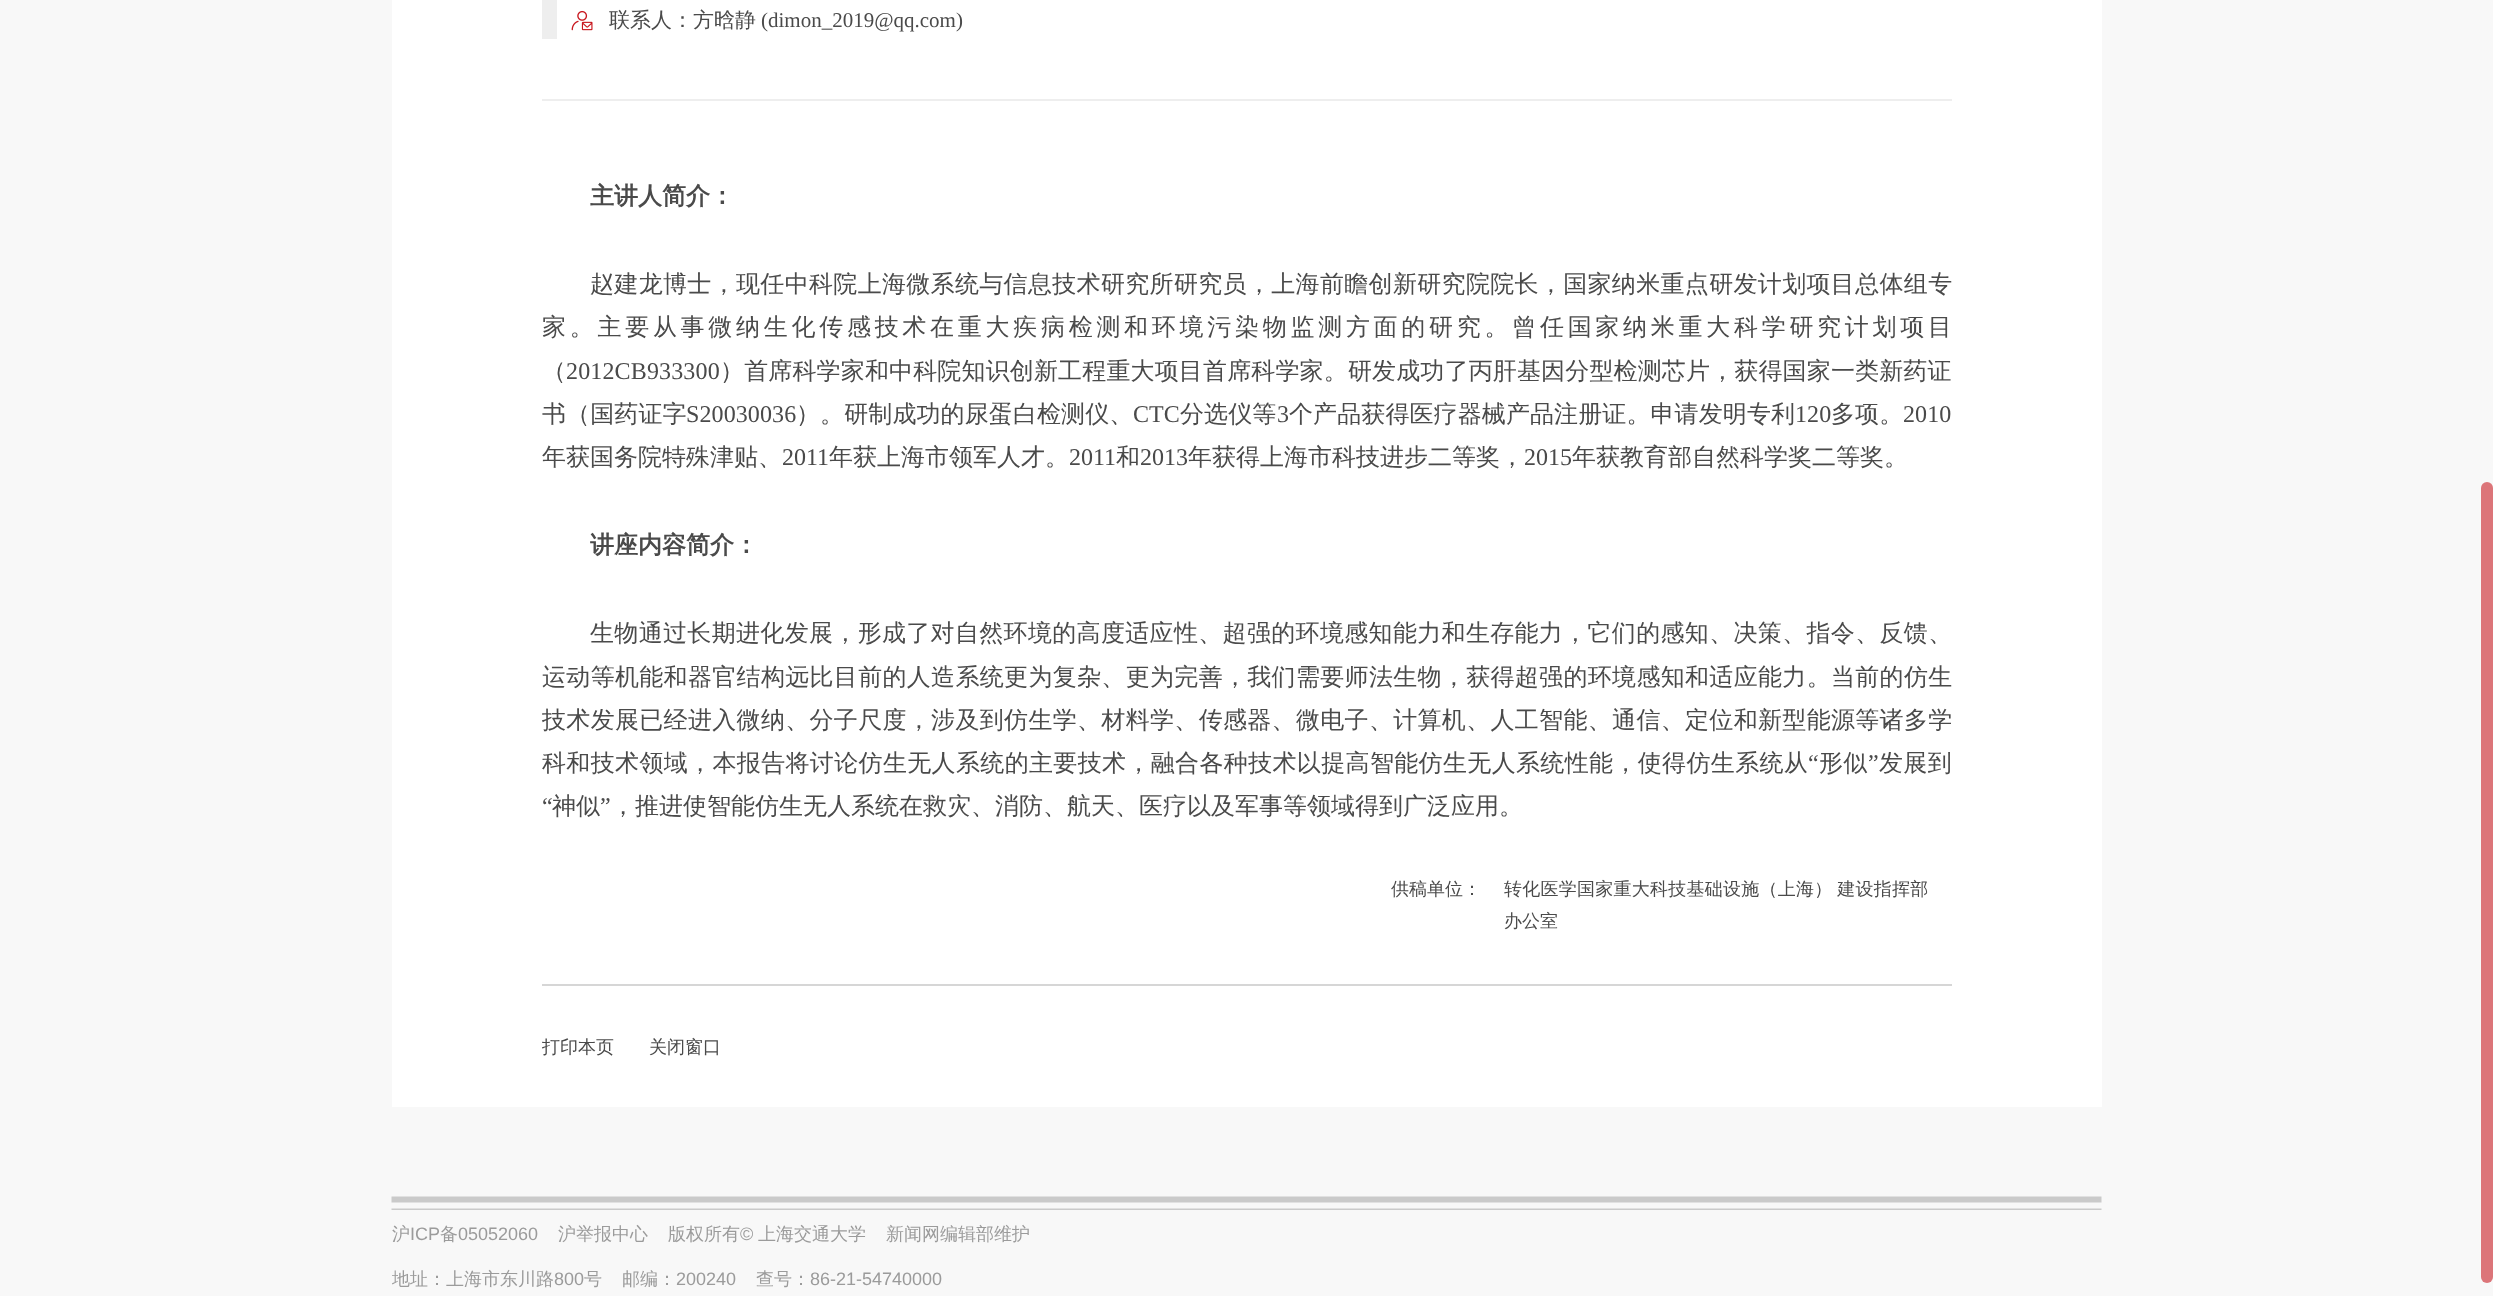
<!DOCTYPE html>
<meta charset="utf-8">
<style>body { margin: 0 } canvas { display: block }</style>
<canvas id="canvas" width="2493" height="1296"></canvas>
<img id="img1" src="img_01.png" hidden>
<img id="img2" src="img_02.png" hidden>
<script>
window.onload = function () {
	const canvas = document.getElementById("canvas");
	const ctx = canvas.getContext("2d");
	ctx.miterLimit = 4;
	ctx.fontKerning = "normal";
	function txt(s, x, y) {
		ctx.fillText(s, x, y);
	}
	function fill(x, y, w, h) {
		ctx.fillRect(x, y, w, h);
	}
	function round(x, y, w, h, r) {
		ctx.beginPath();
		ctx.roundRect(x, y, w, h, r);
		ctx.fill();
	}
	function img(id, x, y, w, h) {
		ctx.drawImage(document.getElementById(id), x, y, w, h);
	}

	ctx.fillStyle = "#F8F8F8";
	fill(0, 0, 2493, 1296);
	ctx.fillStyle = "#FFFFFF";
	fill(392, 0, 1710, 1107);
	ctx.fillStyle = "#EEEEEE";
	fill(542, 0, 15, 39);
	img("img1", 571, 10, 22, 21);
	fill(542, 99, 1410, 2);
	ctx.fillStyle = "#D6D6D6";
	fill(542, 984, 1410, 2);
	img("img2", 391, 1196, 1711, 14);
	ctx.fillStyle = "#DC7579";
	round(2481, 482, 12, 801, 6);
	ctx.font = "500 21px WenQuanYi Zen Hei";
	ctx.fillStyle = "#4A4A4A";
	txt("联系人：方晗静", 609, 27);
	ctx.font = "21px Liberation Serif";
	txt("(dimon_2019@qq.com)", 761, 27);
	ctx.font = "bold 24px WenQuanYi Zen Hei";
	txt("主讲人简介：", 590, 204);
	ctx.letterSpacing = "0.33px";
	ctx.font = "500 24px WenQuanYi Zen Hei";
	txt("赵建龙博士，现任中科院上海微系统与信息技术研究所研究员，上海前瞻创新研究院院长，国家纳米重点研发计划项目总体组专", 590, 292);
	ctx.letterSpacing = "3.72px";
	txt("家。主要从事微纳生化传感技术在重大疾病检测和环境污染物监测方面的研究。曾任国家纳米重大科学研究计划项目", 542, 335);
	ctx.letterSpacing = "0.15px";
	txt("（", 542, 379);
	ctx.font = "24px Liberation Serif";
	txt("2012CB933300", 566, 379);
	ctx.font = "500 24px WenQuanYi Zen Hei";
	txt("）首席科学家和中科院知识创新工程重大项目首席科学家。研发成功了丙肝基因分型检测芯片，获得国家一类新药证", 720, 379);
	ctx.letterSpacing = "0.1px";
	txt("书（国药证字", 542, 422);
	ctx.font = "24px Liberation Serif";
	txt("S20030036", 686, 422);
	ctx.font = "500 24px WenQuanYi Zen Hei";
	txt("）。研制成功的尿蛋白检测仪、", 796, 422);
	ctx.font = "24px Liberation Serif";
	txt("CTC", 1133, 422);
	ctx.font = "500 24px WenQuanYi Zen Hei";
	txt("分选仪等", 1180, 422);
	ctx.font = "24px Liberation Serif";
	txt("3", 1277, 422);
	ctx.font = "500 24px WenQuanYi Zen Hei";
	txt("个产品获得医疗器械产品注册证。申请发明专利", 1289, 422);
	ctx.font = "24px Liberation Serif";
	txt("120", 1795, 422);
	ctx.font = "500 24px WenQuanYi Zen Hei";
	txt("多项。", 1831, 422);
	ctx.font = "24px Liberation Serif";
	txt("2010", 1903, 422);
	ctx.letterSpacing = "0px";
	ctx.font = "500 24px WenQuanYi Zen Hei";
	txt("年获国务院特殊津贴、", 542, 465);
	ctx.font = "24px Liberation Serif";
	txt("2011", 782, 465);
	ctx.font = "500 24px WenQuanYi Zen Hei";
	txt("年获上海市领军人才。", 829, 465);
	ctx.font = "24px Liberation Serif";
	txt("2011", 1069, 465);
	ctx.font = "500 24px WenQuanYi Zen Hei";
	txt("和", 1116, 465);
	ctx.font = "24px Liberation Serif";
	txt("2013", 1140, 465);
	ctx.font = "500 24px WenQuanYi Zen Hei";
	txt("年获得上海市科技进步二等奖，", 1188, 465);
	ctx.font = "24px Liberation Serif";
	txt("2015", 1524, 465);
	ctx.font = "500 24px WenQuanYi Zen Hei";
	txt("年获教育部自然科学奖二等奖。", 1572, 465);
	ctx.font = "bold 24px WenQuanYi Zen Hei";
	txt("讲座内容简介：", 590, 553);
	ctx.letterSpacing = "0.33px";
	ctx.font = "500 24px WenQuanYi Zen Hei";
	txt("生物通过长期进化发展，形成了对自然环境的高度适应性、超强的环境感知能力和生存能力，它们的感知、决策、指令、反馈、", 590, 641);
	ctx.letterSpacing = "0.32px";
	txt("运动等机能和器官结构远比目前的人造系统更为复杂、更为完善，我们需要师法生物，获得超强的环境感知和适应能力。当前的仿生", 542, 685);
	txt("技术发展已经进入微纳、分子尺度，涉及到仿生学、材料学、传感器、微电子、计算机、人工智能、通信、定位和新型能源等诸多学", 542, 728);
	ctx.letterSpacing = "0.35px";
	txt("科和技术领域，本报告将讨论仿生无人系统的主要技术，融合各种技术以提高智能仿生无人系统性能，使得仿生系统从", 542, 771);
	ctx.font = "24px Liberation Serif";
	txt("“", 1808, 771);
	ctx.font = "500 24px WenQuanYi Zen Hei";
	txt("形似", 1819, 771);
	ctx.font = "24px Liberation Serif";
	txt("”", 1868, 771);
	ctx.font = "500 24px WenQuanYi Zen Hei";
	txt("发展到", 1879, 771);
	ctx.letterSpacing = "0px";
	ctx.font = "24px Liberation Serif";
	txt("“", 542, 814);
	ctx.font = "500 24px WenQuanYi Zen Hei";
	txt("神似", 552, 814);
	ctx.font = "24px Liberation Serif";
	txt("”", 600, 814);
	ctx.font = "500 24px WenQuanYi Zen Hei";
	txt("，推进使智能仿生无人系统在救灾、消防、航天、医疗以及军事等领域得到广泛应用。", 611, 814);
	ctx.font = "500 18px WenQuanYi Zen Hei";
	txt("供稿单位：", 1391, 895);
	ctx.letterSpacing = "0.25px";
	ctx.wordSpacing = "-1px";
	txt("转化医学国家重大科技基础设施（上海） 建设指挥部", 1504, 895);
	ctx.letterSpacing = "0px";
	ctx.wordSpacing = "0px";
	txt("办公室", 1504, 927);
	txt("打印本页", 542, 1053);
	txt("关闭窗口", 649, 1053);
	ctx.fillStyle = "#9B9B9B";
	txt("沪", 392, 1240);
	ctx.font = "18px Liberation Sans";
	txt("ICP", 410, 1240);
	ctx.font = "500 18px WenQuanYi Zen Hei";
	txt("备", 440, 1240);
	ctx.font = "18px Liberation Sans";
	txt("05052060", 458, 1240);
	ctx.font = "500 18px WenQuanYi Zen Hei";
	txt("沪举报中心", 558, 1240);
	txt("版权所有", 668, 1240);
	ctx.font = "18px Liberation Sans";
	txt("©", 740, 1240);
	ctx.font = "500 18px WenQuanYi Zen Hei";
	txt("上海交通大学", 758, 1240);
	txt("新闻网编辑部维护", 886, 1240);
	txt("地址：上海市东川路", 392, 1285);
	ctx.font = "18px Liberation Sans";
	txt("800", 554, 1285);
	ctx.font = "500 18px WenQuanYi Zen Hei";
	txt("号", 584, 1285);
	txt("邮编：", 622, 1285);
	ctx.font = "18px Liberation Sans";
	txt("200240", 676, 1285);
	ctx.font = "500 18px WenQuanYi Zen Hei";
	txt("查号：", 756, 1285);
	ctx.font = "18px Liberation Sans";
	txt("86-21-54740000", 810, 1285);
};
</script>
